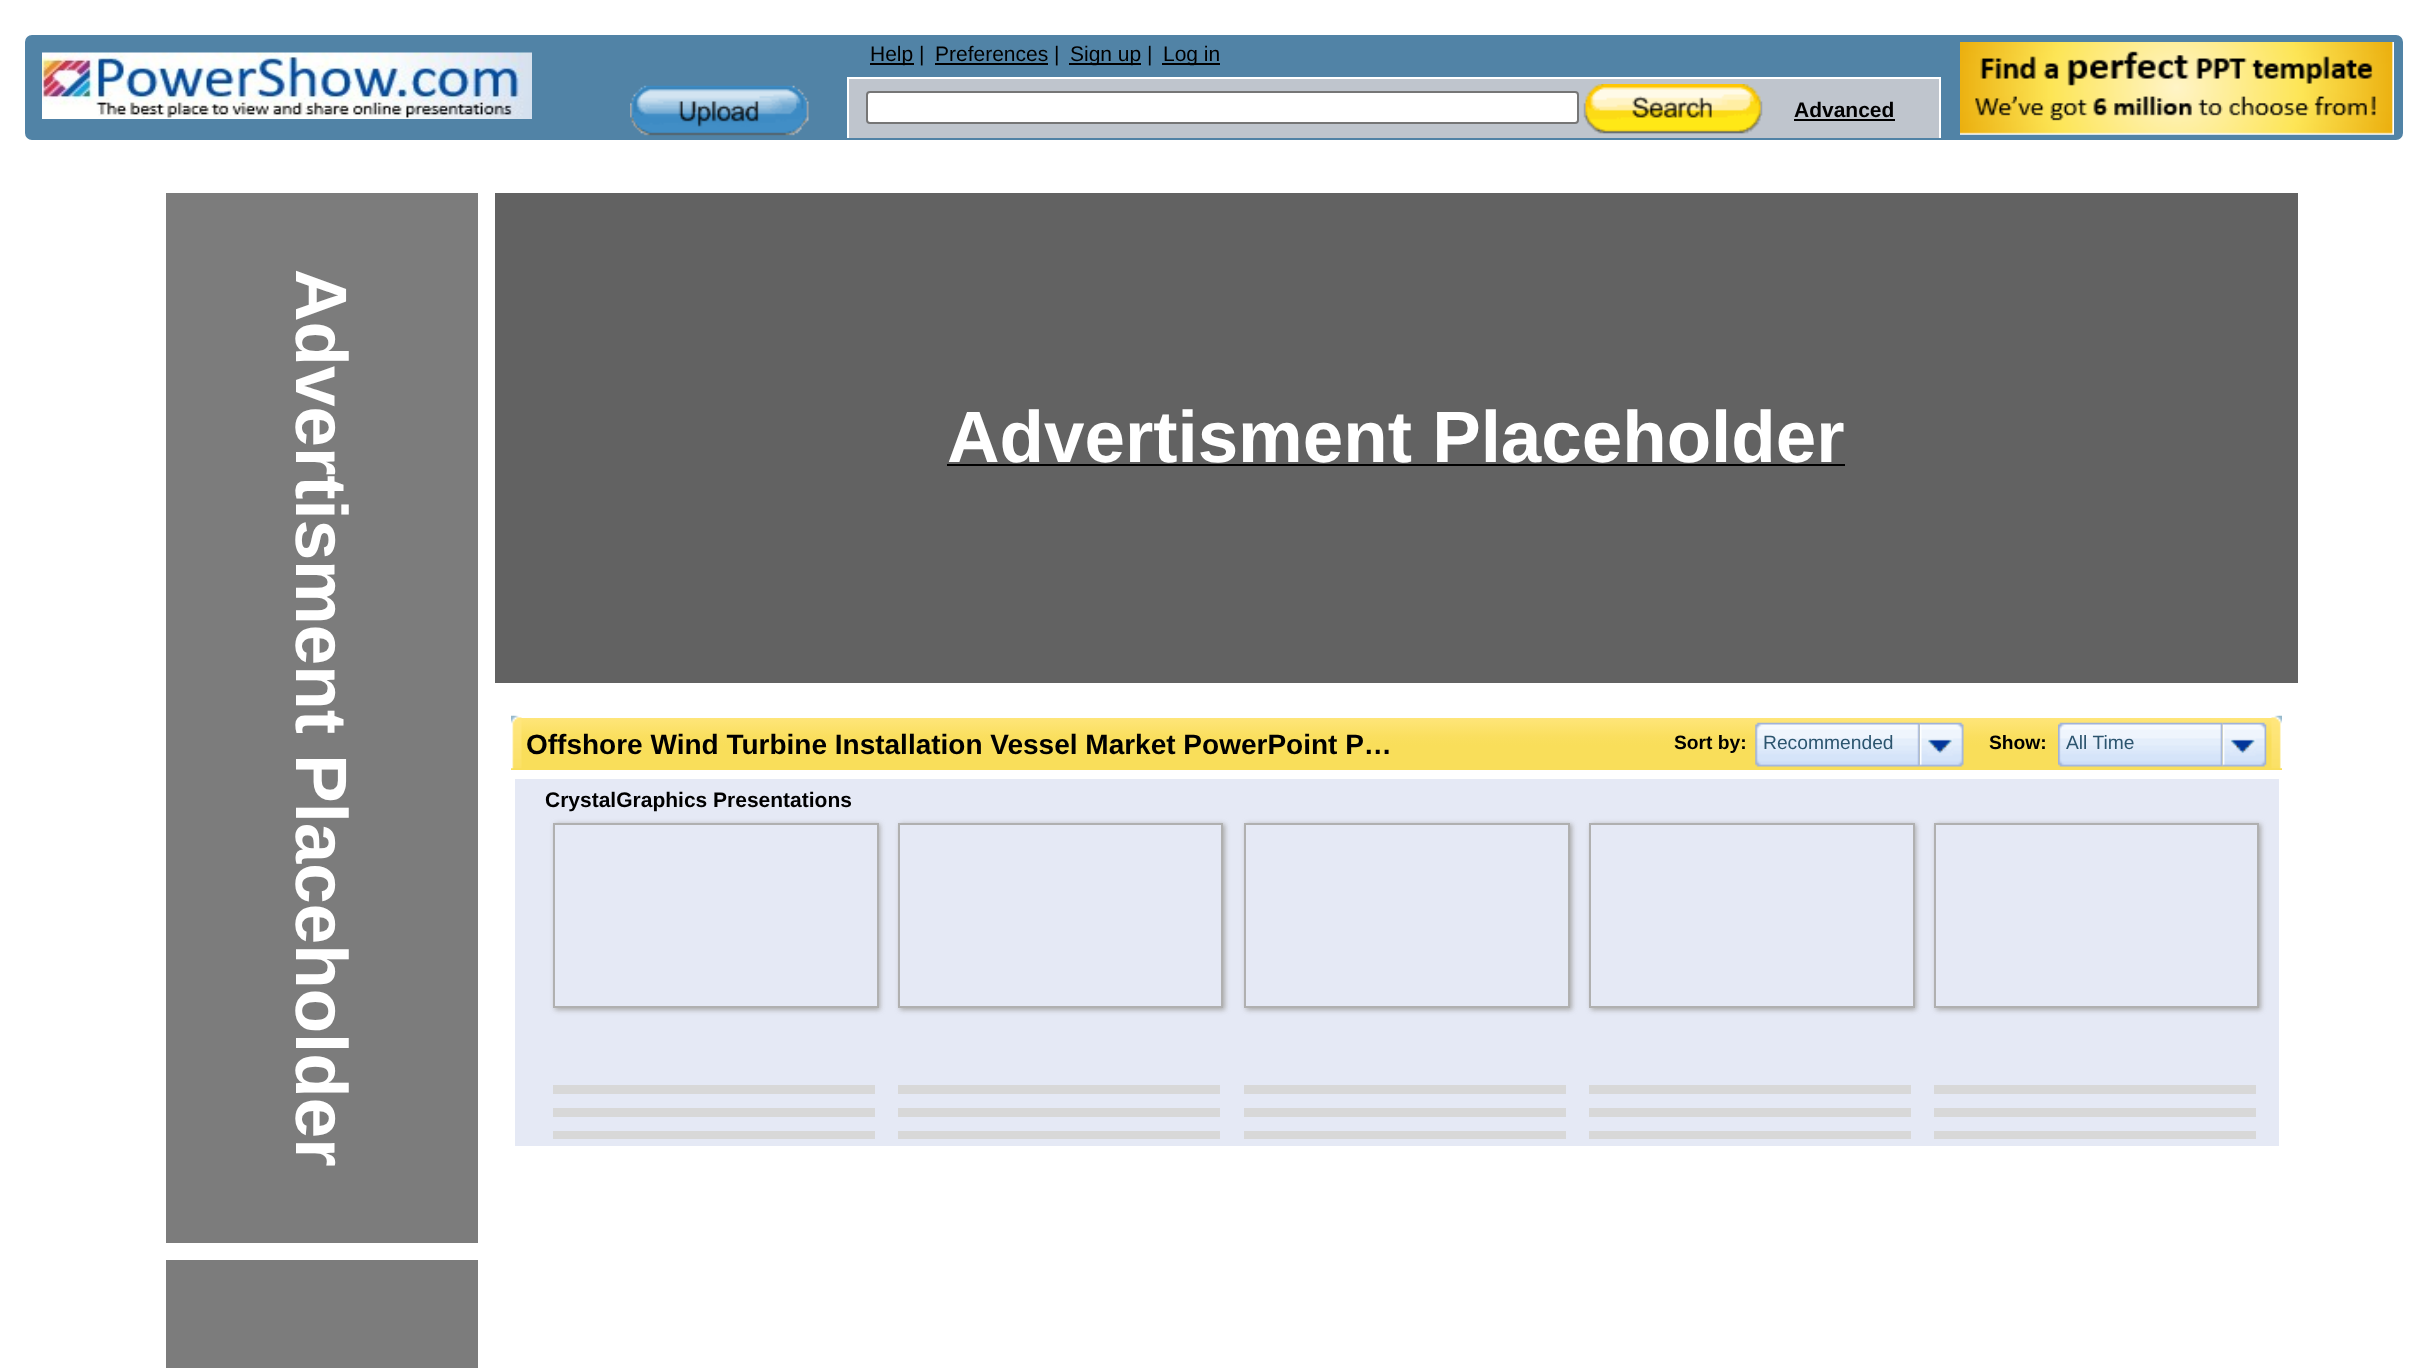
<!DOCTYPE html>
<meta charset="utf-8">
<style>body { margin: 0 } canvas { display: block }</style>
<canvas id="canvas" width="2423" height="1368"></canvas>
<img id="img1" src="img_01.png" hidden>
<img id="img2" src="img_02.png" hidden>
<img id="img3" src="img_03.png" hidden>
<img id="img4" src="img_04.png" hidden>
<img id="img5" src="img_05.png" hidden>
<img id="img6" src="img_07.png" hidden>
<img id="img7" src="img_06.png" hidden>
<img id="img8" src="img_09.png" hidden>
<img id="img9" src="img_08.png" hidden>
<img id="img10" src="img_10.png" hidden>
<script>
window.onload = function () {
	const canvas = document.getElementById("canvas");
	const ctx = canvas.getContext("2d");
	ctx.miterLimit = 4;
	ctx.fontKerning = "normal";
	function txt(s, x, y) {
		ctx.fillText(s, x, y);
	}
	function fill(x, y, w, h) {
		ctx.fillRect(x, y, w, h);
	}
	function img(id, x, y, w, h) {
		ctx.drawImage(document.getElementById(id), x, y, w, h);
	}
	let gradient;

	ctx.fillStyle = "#FFFFFF";
	fill(0, 0, 2423, 1368);
	ctx.fillStyle = "#5183A6";
	ctx.beginPath();
	ctx.roundRect(24, 34, 2380, 107, 8);
	ctx.fill();
	ctx.strokeStyle = "#FFFFFF";
	ctx.lineWidth = 2;
	ctx.stroke();
	img("img1", 42, 52, 490, 67);
	img("img2", 630, 85, 179, 51);
	ctx.fillStyle = "#000000";
	fill(870, 63, 44, 2);
	fill(935, 63, 113, 2);
	fill(1069, 63, 72, 2);
	fill(1162, 63, 58, 2);
	ctx.fillStyle = "#BFC5CD";
	fill(849, 79, 1090, 59);
	ctx.fillStyle = "#FFFFFF";
	fill(1939, 77, 2, 61);
	fill(847, 77, 2, 61);
	fill(849, 77, 1090, 2);
	ctx.beginPath();
	ctx.roundRect(867, 92, 711, 31, 3);
	ctx.fill();
	ctx.strokeStyle = "#767676";
	ctx.stroke();
	img("img3", 1583, 84, 180, 50);
	ctx.fillStyle = "#000000";
	fill(1794, 119, 101, 2);
	img("img4", 1960, 42, 434, 93);
	ctx.fillStyle = "#7C7C7C";
	fill(166, 193, 312, 1050);
	fill(166, 1260, 312, 108);
	ctx.fillStyle = "#626262";
	fill(495, 193, 1803, 490);
	ctx.fillStyle = "#000000";
	fill(947, 464, 898, 2);
	gradient = ctx.createLinearGradient(1397, 717, 1397, 770);
	gradient.addColorStop(0, "#FFE67B");
	gradient.addColorStop(0.37, "#FADF5F");
	gradient.addColorStop(0.53, "#F9DE5A");
	gradient.addColorStop(1, "#F9DE5A");
	ctx.fillStyle = gradient;
	fill(511, 718, 1771, 52);
	img("img5", 511, 715, 11, 54);
	img("img6", 1919, 722, 45, 45);
	img("img7", 1755, 722, 165, 45);
	img("img8", 2222, 722, 45, 45);
	img("img9", 2058, 722, 165, 45);
	img("img10", 2271, 715, 11, 54);
	ctx.fillStyle = "#E5E9F5";
	fill(515, 779, 1764, 367);
	ctx.save();
	ctx.beginPath();
	ctx.moveTo(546, 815);
	ctx.lineTo(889, 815);
	ctx.lineTo(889, 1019);
	ctx.lineTo(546, 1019);
	ctx.closePath();
	ctx.moveTo(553, 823);
	ctx.lineTo(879, 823);
	ctx.lineTo(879, 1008);
	ctx.lineTo(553, 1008);
	ctx.closePath();
	ctx.clip("evenodd");
	ctx.fillStyle = "#AAAAAA";
	ctx.filter = "blur(2.5px)";
	ctx.beginPath();
	ctx.rect(555, 824, 325, 186);
	ctx.fill();
	ctx.filter = "none";
	ctx.restore();
	ctx.strokeStyle = "#B0B0B0";
	ctx.strokeRect(554, 824, 324, 183);
	ctx.fillStyle = "#D8D8D8";
	fill(553, 1085, 322, 9);
	fill(553, 1108, 322, 9);
	fill(553, 1131, 322, 8);
	ctx.save();
	ctx.beginPath();
	ctx.moveTo(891, 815);
	ctx.lineTo(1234, 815);
	ctx.lineTo(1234, 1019);
	ctx.lineTo(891, 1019);
	ctx.closePath();
	ctx.moveTo(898, 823);
	ctx.lineTo(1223, 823);
	ctx.lineTo(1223, 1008);
	ctx.lineTo(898, 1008);
	ctx.closePath();
	ctx.clip("evenodd");
	ctx.fillStyle = "#AAAAAA";
	ctx.filter = "blur(2.5px)";
	ctx.beginPath();
	ctx.rect(900, 824, 325, 186);
	ctx.fill();
	ctx.filter = "none";
	ctx.restore();
	ctx.strokeRect(899, 824, 323, 183);
	fill(898, 1085, 322, 9);
	fill(898, 1108, 322, 9);
	fill(898, 1131, 322, 8);
	ctx.save();
	ctx.beginPath();
	ctx.moveTo(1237, 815);
	ctx.lineTo(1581, 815);
	ctx.lineTo(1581, 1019);
	ctx.lineTo(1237, 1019);
	ctx.closePath();
	ctx.moveTo(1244, 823);
	ctx.lineTo(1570, 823);
	ctx.lineTo(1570, 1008);
	ctx.lineTo(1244, 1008);
	ctx.closePath();
	ctx.clip("evenodd");
	ctx.fillStyle = "#AAAAAA";
	ctx.filter = "blur(2.5px)";
	ctx.beginPath();
	ctx.rect(1246, 824, 326, 186);
	ctx.fill();
	ctx.filter = "none";
	ctx.restore();
	ctx.strokeRect(1245, 824, 324, 183);
	fill(1244, 1085, 322, 9);
	fill(1244, 1108, 322, 9);
	fill(1244, 1131, 322, 8);
	ctx.save();
	ctx.beginPath();
	ctx.moveTo(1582, 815);
	ctx.lineTo(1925, 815);
	ctx.lineTo(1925, 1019);
	ctx.lineTo(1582, 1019);
	ctx.closePath();
	ctx.moveTo(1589, 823);
	ctx.lineTo(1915, 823);
	ctx.lineTo(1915, 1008);
	ctx.lineTo(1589, 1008);
	ctx.closePath();
	ctx.clip("evenodd");
	ctx.fillStyle = "#AAAAAA";
	ctx.filter = "blur(2.5px)";
	ctx.beginPath();
	ctx.rect(1591, 824, 325, 186);
	ctx.fill();
	ctx.filter = "none";
	ctx.restore();
	ctx.strokeRect(1590, 824, 324, 183);
	fill(1589, 1085, 322, 9);
	fill(1589, 1108, 322, 9);
	fill(1589, 1131, 322, 8);
	ctx.save();
	ctx.beginPath();
	ctx.moveTo(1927, 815);
	ctx.lineTo(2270, 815);
	ctx.lineTo(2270, 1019);
	ctx.lineTo(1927, 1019);
	ctx.closePath();
	ctx.moveTo(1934, 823);
	ctx.lineTo(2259, 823);
	ctx.lineTo(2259, 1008);
	ctx.lineTo(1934, 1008);
	ctx.closePath();
	ctx.clip("evenodd");
	ctx.fillStyle = "#AAAAAA";
	ctx.filter = "blur(2.5px)";
	ctx.beginPath();
	ctx.rect(1936, 824, 325, 186);
	ctx.fill();
	ctx.filter = "none";
	ctx.restore();
	ctx.strokeRect(1935, 824, 323, 183);
	fill(1934, 1085, 322, 9);
	fill(1934, 1108, 322, 9);
	fill(1934, 1131, 322, 8);
	ctx.font = "21px Liberation Sans";
	ctx.fillStyle = "#000000";
	txt("Help |", 870, 61);
	txt("Preferences |", 935, 61);
	txt("Sign up |", 1070, 61);
	txt("Log in", 1163, 61);
	ctx.font = "bold 21px Liberation Sans";
	txt("Advanced", 1794, 117);
	ctx.font = "bold 72.75px Liberation Sans";
	ctx.fillStyle = "#FFFFFF";
	ctx.save();
	ctx.translate(296, 269);
	ctx.rotate(90 * Math.PI / 180);
	ctx.fillText("Advertisment Placeholder", 0, 0);
	ctx.restore();
	txt("Advertisment Placeholder", 947, 462);
	ctx.font = "bold 28px Liberation Sans";
	ctx.fillStyle = "#000000";
	txt("Offshore Wind Turbine Installation Vessel Market PowerPoint P…", 526, 754);
	ctx.font = "bold 19.25px Liberation Sans";
	txt("Sort by:", 1674, 749);
	ctx.font = "19.25px Liberation Sans";
	ctx.fillStyle = "#2C556F";
	txt("Recommended", 1763, 749);
	ctx.font = "bold 19.25px Liberation Sans";
	ctx.fillStyle = "#000000";
	txt("Show:", 1989, 749);
	ctx.font = "19.25px Liberation Sans";
	ctx.fillStyle = "#2C556F";
	txt("All Time", 2066, 749);
	ctx.font = "bold 21px Liberation Sans";
	ctx.fillStyle = "#000000";
	txt("CrystalGraphics Presentations", 545, 807);
};
</script>
